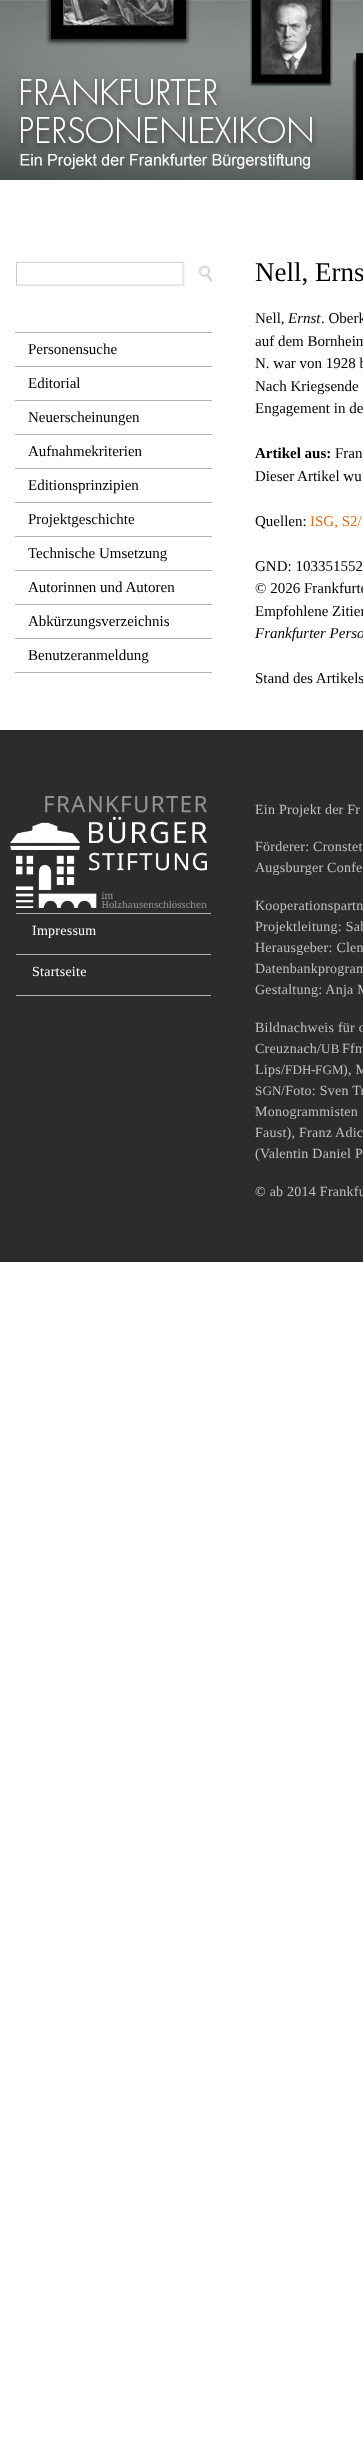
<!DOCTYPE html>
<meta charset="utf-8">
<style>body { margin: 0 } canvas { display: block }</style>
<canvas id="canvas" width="363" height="2440"></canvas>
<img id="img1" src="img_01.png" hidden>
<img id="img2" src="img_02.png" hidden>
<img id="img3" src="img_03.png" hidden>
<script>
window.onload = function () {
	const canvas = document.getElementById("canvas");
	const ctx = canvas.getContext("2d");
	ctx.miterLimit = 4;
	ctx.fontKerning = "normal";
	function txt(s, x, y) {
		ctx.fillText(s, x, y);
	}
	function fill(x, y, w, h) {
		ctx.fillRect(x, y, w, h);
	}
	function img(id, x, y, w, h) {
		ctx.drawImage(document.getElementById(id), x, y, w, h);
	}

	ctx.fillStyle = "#FFFFFF";
	fill(0, 0, 363, 2440);
	img("img1", 0, 0, 363, 180);
	img("img2", 16, 261, 197, 26);
	ctx.fillStyle = "#B2B2B2";
	fill(15, 332, 197, 1);
	fill(15, 366, 197, 1);
	fill(15, 400, 197, 1);
	fill(15, 434, 197, 1);
	fill(15, 468, 197, 1);
	fill(15, 502, 197, 1);
	fill(15, 536, 197, 1);
	fill(15, 570, 197, 1);
	fill(15, 604, 197, 1);
	fill(15, 638, 197, 1);
	fill(15, 672, 197, 1);
	ctx.fillStyle = "#2C2C2C";
	fill(0, 730, 363, 532);
	img("img3", 10, 796, 197, 112);
	ctx.fillStyle = "#B2B2B2";
	fill(16, 913, 195, 1);
	fill(16, 954, 195, 1);
	fill(16, 995, 195, 1);
	ctx.font = "15px Liberation Serif";
	ctx.fillStyle = "#000000";
	txt("Personensuche", 28, 354);
	txt("Editorial", 28, 388);
	txt("Neuerscheinungen", 28, 422);
	txt("Aufnahmekriterien", 28, 456);
	txt("Editionsprinzipien", 28, 490);
	txt("Projektgeschichte", 28, 524);
	txt("Technische Umsetzung", 28, 558);
	txt("Autorinnen und Autoren", 28, 592);
	txt("Abkürzungsverzeichnis", 28, 626);
	txt("Benutzeranmeldung", 28, 660);
	ctx.font = "27px Liberation Serif";
	txt("Nell, Erns", 255, 281);
	ctx.font = "15px Liberation Serif";
	txt("Nell,", 255, 323);
	ctx.font = "italic 15px Liberation Serif";
	txt("Ernst", 288, 323);
	ctx.font = "15px Liberation Serif";
	txt(". Oberk", 321, 323);
	txt("auf dem Bornheim", 255, 346);
	txt("N. war von 1928 b", 255, 368);
	txt("Nach Kriegsende", 255, 391);
	txt("Engagement in de", 255, 413);
	ctx.font = "bold 15px Liberation Serif";
	txt("Artikel aus:", 255, 458);
	ctx.font = "15px Liberation Serif";
	txt("Fran", 335, 458);
	txt("Dieser Artikel wu", 255, 481);
	txt("Quellen:", 255, 526);
	ctx.fillStyle = "#EE6A13";
	txt("ISG, S2/", 310, 526);
	ctx.fillStyle = "#000000";
	txt("GND: 103351552", 255, 571);
	txt("© 2026 Frankfurte", 255, 593);
	txt("Empfohlene Zitier", 255, 616);
	ctx.font = "italic 15px Liberation Serif";
	txt("Frankfurter Perso", 255, 638);
	ctx.font = "15px Liberation Serif";
	txt("Stand des Artikels", 255, 683);
	ctx.letterSpacing = "0.25px";
	ctx.font = "14px Liberation Serif";
	ctx.fillStyle = "#FFFFFF";
	txt("Impressum", 32, 935);
	txt("Startseite", 32, 976);
	ctx.fillStyle = "#C0C0C0";
	txt("Ein Projekt der Fr", 255, 814);
	txt("Förderer: Cronstet", 255, 851);
	txt("Augsburger Confe", 255, 872);
	txt("Kooperationspartn", 255, 910);
	txt("Projektleitung: Sab", 255, 931);
	txt("Herausgeber: Clem", 255, 952);
	txt("Datenbankprogram", 255, 973);
	txt("Gestaltung: Anja M", 255, 994);
	txt("Bildnachweis für d", 255, 1032);
	txt("Creuznach/", 255, 1053);
	ctx.font = "13px Liberation Serif";
	txt("UB", 321, 1053);
	ctx.font = "14px Liberation Serif";
	txt("Ffm", 342, 1053);
	txt("Lips/", 255, 1074);
	ctx.font = "13px Liberation Serif";
	txt("FDH", 285, 1074);
	ctx.font = "14px Liberation Serif";
	txt("-", 311, 1074);
	ctx.font = "13px Liberation Serif";
	txt("FGM", 315, 1074);
	ctx.font = "14px Liberation Serif";
	txt("), M", 343, 1074);
	ctx.font = "13px Liberation Serif";
	txt("SGN", 255, 1095);
	ctx.font = "14px Liberation Serif";
	txt("/Foto: Sven Tr", 281, 1095);
	txt("Monogrammisten", 255, 1116);
	txt("Faust), Franz Adic", 255, 1137);
	txt("(Valentin Daniel P", 255, 1158);
	txt("© ab 2014 Frankfu", 255, 1196);
};
</script>
